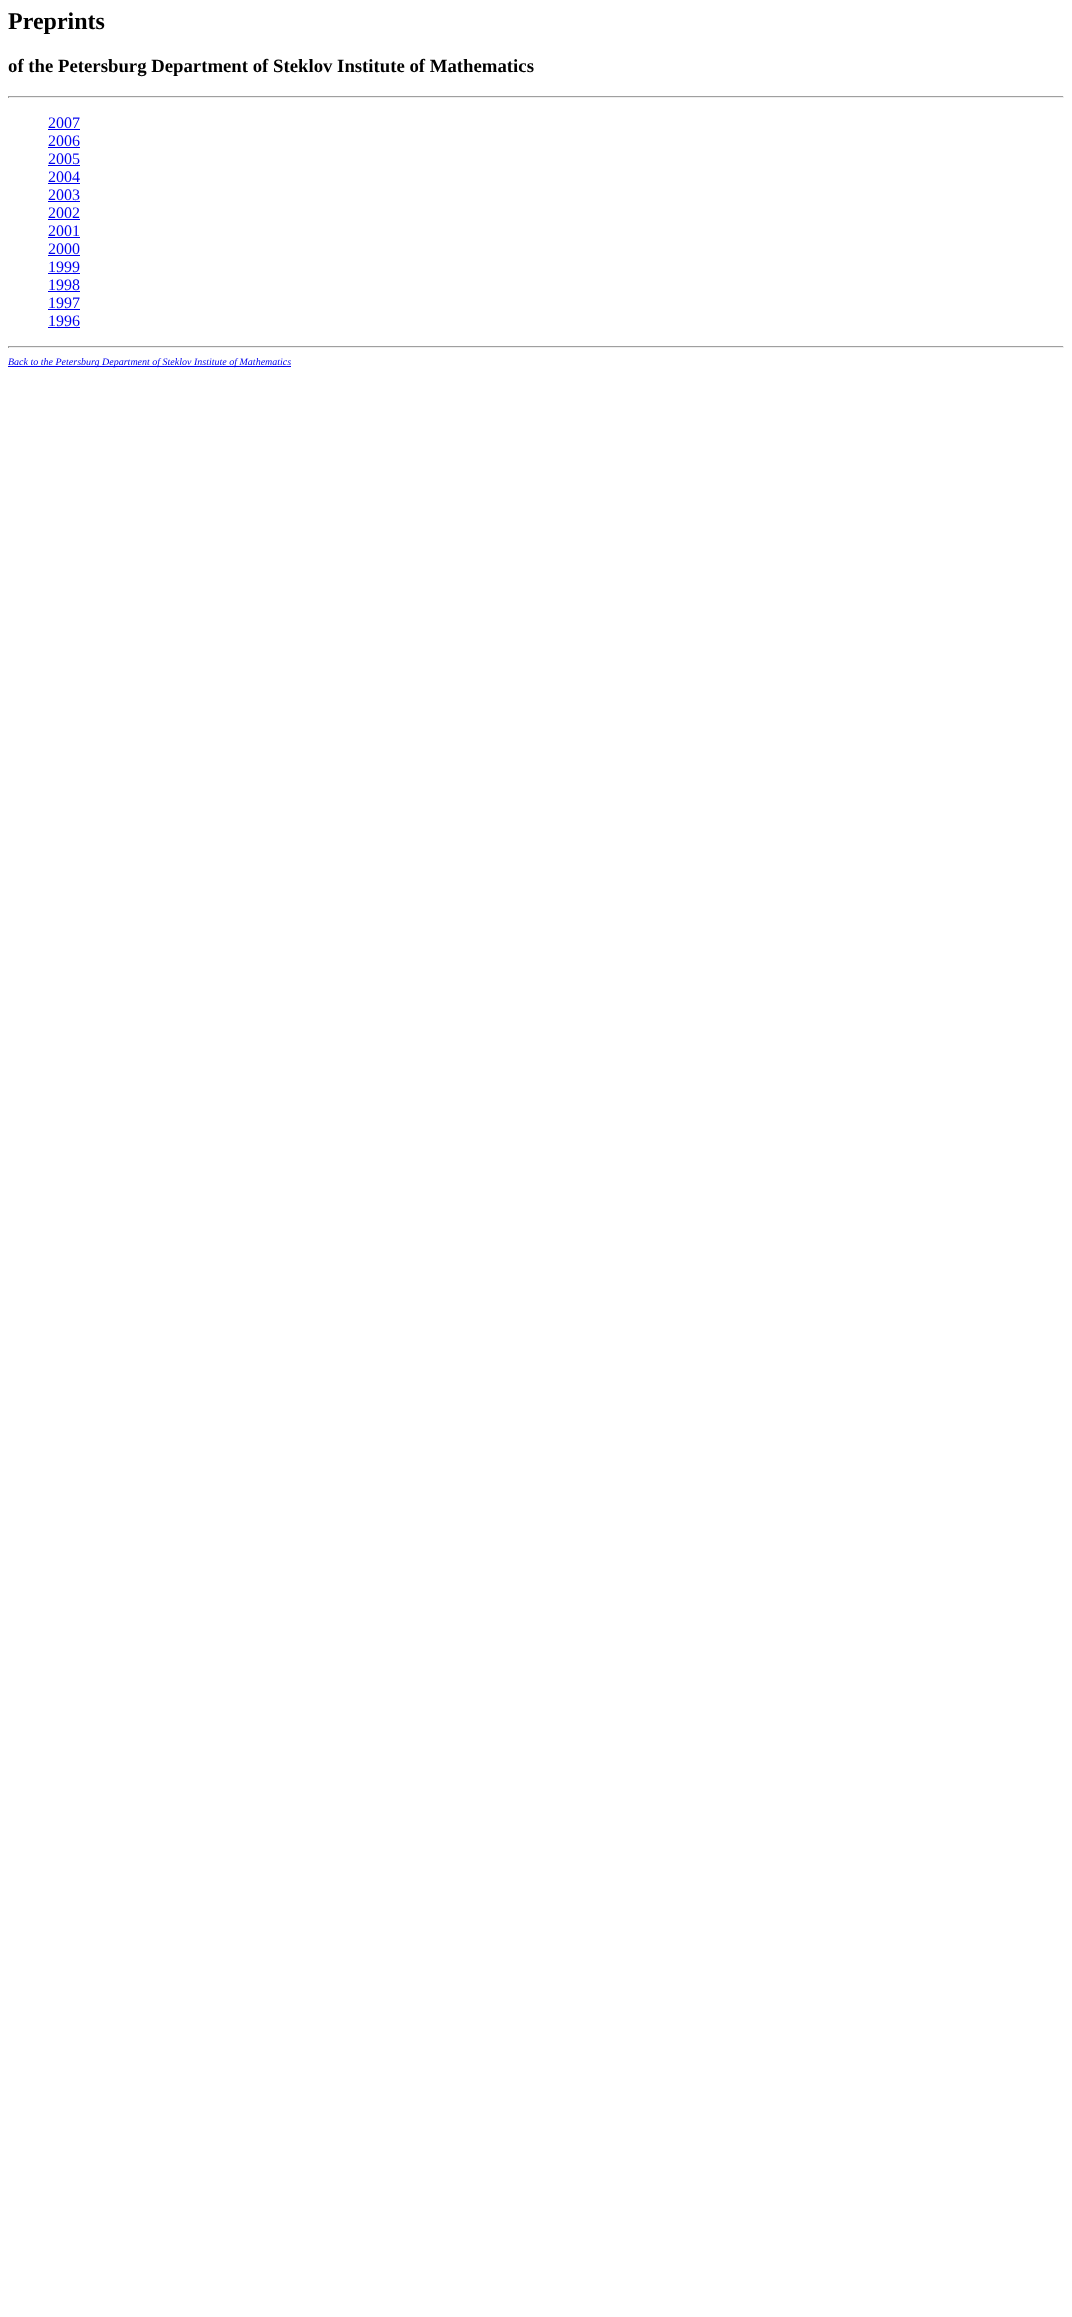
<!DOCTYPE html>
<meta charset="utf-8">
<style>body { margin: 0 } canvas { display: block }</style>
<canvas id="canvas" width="1072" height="2317"></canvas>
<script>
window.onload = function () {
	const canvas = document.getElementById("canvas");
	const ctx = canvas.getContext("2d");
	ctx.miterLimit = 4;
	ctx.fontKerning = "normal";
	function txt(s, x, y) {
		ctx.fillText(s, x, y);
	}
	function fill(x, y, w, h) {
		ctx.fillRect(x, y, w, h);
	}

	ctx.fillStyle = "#FFFFFF";
	fill(0, 0, 1072, 2317);
	ctx.fillStyle = "#9F9F9F";
	fill(8, 96, 1056, 1);
	ctx.fillStyle = "#EEEEEE";
	fill(1063, 96, 1, 2);
	fill(8, 97, 1056, 1);
	ctx.fillStyle = "#9F9F9F";
	fill(8, 96, 1, 2);
	ctx.fillStyle = "#0000EE";
	fill(48, 129, 32, 1);
	fill(48, 147, 32, 1);
	fill(48, 165, 32, 1);
	fill(48, 183, 32, 1);
	fill(48, 201, 32, 1);
	fill(48, 219, 32, 1);
	fill(48, 237, 32, 1);
	fill(48, 255, 32, 1);
	fill(48, 273, 32, 1);
	fill(48, 291, 32, 1);
	fill(48, 309, 32, 1);
	fill(48, 327, 32, 1);
	ctx.fillStyle = "#9F9F9F";
	fill(8, 346, 1056, 1);
	ctx.fillStyle = "#EEEEEE";
	fill(1063, 346, 1, 2);
	fill(8, 347, 1056, 1);
	ctx.fillStyle = "#9F9F9F";
	fill(8, 346, 1, 2);
	ctx.fillStyle = "#0000EE";
	fill(8, 366, 283, 1);
	ctx.font = "bold 24px Liberation Serif";
	ctx.fillStyle = "#000000";
	txt("Preprints", 8, 29);
	ctx.font = "bold 18.75px Liberation Serif";
	txt("of the Petersburg Department of Steklov Institute of Mathematics", 8, 72);
	ctx.font = "16px Liberation Serif";
	ctx.fillStyle = "#0000EE";
	txt("2007", 48, 128);
	txt("2006", 48, 146);
	txt("2005", 48, 164);
	txt("2004", 48, 182);
	txt("2003", 48, 200);
	txt("2002", 48, 218);
	txt("2001", 48, 236);
	txt("2000", 48, 254);
	txt("1999", 48, 272);
	txt("1998", 48, 290);
	txt("1997", 48, 308);
	txt("1996", 48, 326);
	ctx.font = "italic 10px Liberation Serif";
	txt("Back to the Petersburg Department of Steklov Institute of Mathematics", 8, 365);
};
</script>
